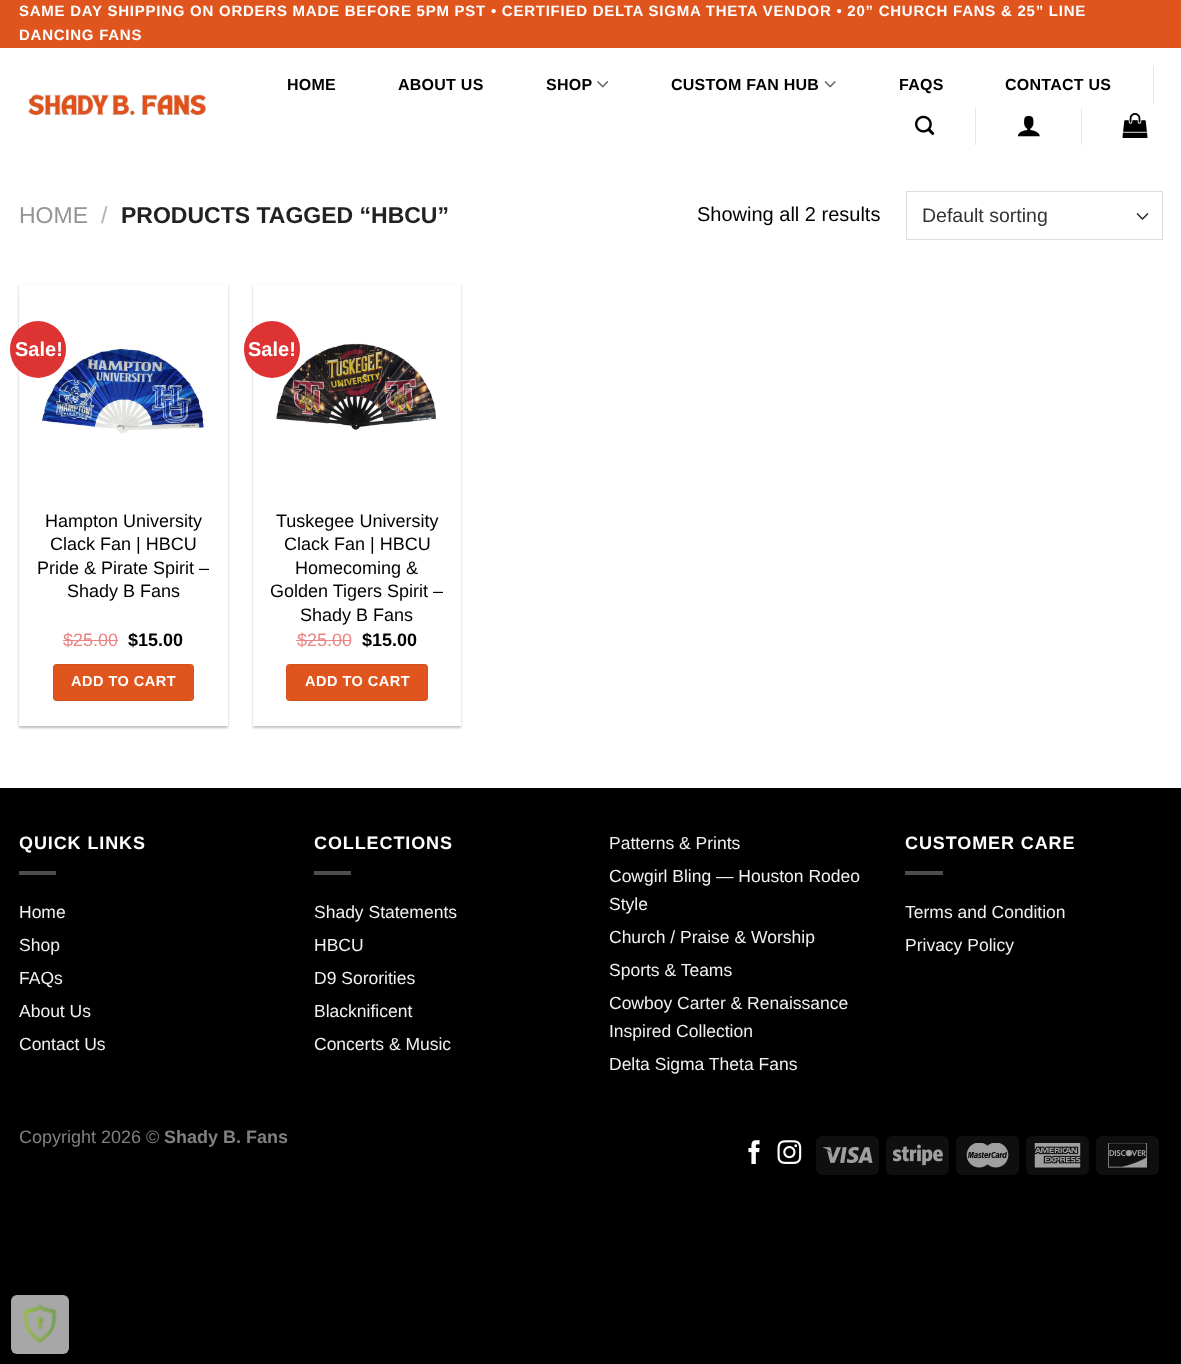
<!DOCTYPE html>
<meta charset="utf-8">
<style>body { margin: 0 } canvas { display: block }</style>
<canvas id="canvas" width="1181" height="1364"></canvas>
<img id="img1" src="img_01.png" hidden>
<img id="img2" src="img_02.png" hidden>
<img id="img3" src="img_03.png" hidden>
<img id="img4" src="img_04.png" hidden>
<img id="img5" src="img_05.png" hidden>
<img id="img6" src="img_06.png" hidden>
<img id="img7" src="img_07.png" hidden>
<img id="img8" src="img_08.png" hidden>
<img id="img9" src="img_09.png" hidden>
<img id="img10" src="img_10.png" hidden>
<img id="img11" src="img_11.png" hidden>
<img id="img12" src="img_12.png" hidden>
<img id="img13" src="img_13.png" hidden>
<img id="img14" src="img_14.png" hidden>
<img id="img15" src="img_15.png" hidden>
<img id="img16" src="img_16.png" hidden>
<script>
window.onload = function () {
	const canvas = document.getElementById("canvas");
	const ctx = canvas.getContext("2d");
	ctx.miterLimit = 4;
	ctx.fontKerning = "normal";
	function txt(s, x, y) {
		ctx.fillText(s, x, y);
	}
	function fill(x, y, w, h) {
		ctx.fillRect(x, y, w, h);
	}
	function round(x, y, w, h, r) {
		ctx.beginPath();
		ctx.roundRect(x, y, w, h, r);
		ctx.fill();
	}
	function img(id, x, y, w, h) {
		ctx.drawImage(document.getElementById(id), x, y, w, h);
	}

	ctx.fillStyle = "#000000";
	fill(0, 0, 1181, 1364);
	ctx.fillStyle = "#FFFFFF";
	fill(0, 48, 1181, 740);
	ctx.fillStyle = "#E0551E";
	fill(0, 0, 1181, 48);
	img("img1", 597, 81, 12, 7);
	img("img2", 824, 81, 12, 7);
	ctx.fillStyle = "#E6E6E6";
	fill(1153, 66, 1, 38);
	img("img3", 915, 115, 20, 20);
	fill(975, 108, 1, 37);
	img("img4", 1017, 115, 23, 22);
	fill(1081, 108, 1, 37);
	img("img5", 1122, 113, 26, 25);
	img("img6", 28, 94, 178, 22);
	ctx.beginPath();
	ctx.moveTo(1137.5, 214);
	ctx.lineTo(1142.5, 219);
	ctx.lineTo(1147.5, 214);
	ctx.strokeStyle = "#333333";
	ctx.lineWidth = 1.7;
	ctx.lineCap = "round";
	ctx.lineJoin = "round";
	ctx.stroke();
	ctx.strokeStyle = "#DDDDDD";
	ctx.lineWidth = 1;
	ctx.lineJoin = "miter";
	ctx.strokeRect(906.5, 191.5, 256, 48);
	ctx.fillStyle = "rgba(0, 0, 0, 0.24)";
	ctx.filter = "blur(1px)";
	ctx.beginPath();
	ctx.rect(19, 285, 209, 443);
	ctx.fill();
	ctx.filter = "none";
	ctx.fillStyle = "rgba(0, 0, 0, 0.12)";
	ctx.filter = "blur(2px)";
	ctx.beginPath();
	ctx.rect(21, 288, 204, 437);
	ctx.fill();
	ctx.filter = "none";
	ctx.fillStyle = "#FFFFFF";
	fill(19, 284, 209, 442);
	img("img7", 40, 346, 165, 88);
	ctx.fillStyle = "#DD3333";
	round(10, 321, 56, 57, 28);
	ctx.fillStyle = "#EB8585";
	fill(63, 640, 55, 1);
	ctx.fillStyle = "#E0551E";
	round(53, 664, 141, 37, 4);
	ctx.strokeStyle = "rgba(0, 0, 0, 0.05)";
	ctx.strokeRect(53.5, 664.5, 140, 36);
	ctx.save();
	ctx.beginPath();
	ctx.moveTo(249, 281);
	ctx.lineTo(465, 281);
	ctx.lineTo(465, 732);
	ctx.lineTo(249, 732);
	ctx.closePath();
	ctx.moveTo(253, 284);
	ctx.lineTo(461, 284);
	ctx.lineTo(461, 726);
	ctx.lineTo(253, 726);
	ctx.closePath();
	ctx.clip("evenodd");
	ctx.fillStyle = "rgba(0, 0, 0, 0.24)";
	ctx.filter = "blur(1px)";
	ctx.beginPath();
	ctx.rect(253, 285, 208, 443);
	ctx.fill();
	ctx.filter = "none";
	ctx.restore();
	img("img8", 276, 343, 160, 87);
	ctx.fillStyle = "#DD3333";
	round(244, 321, 56, 57, 28);
	ctx.fillStyle = "#EB8585";
	fill(296, 640, 55, 1);
	ctx.fillStyle = "#E0551E";
	round(286, 664, 142, 37, 4);
	ctx.strokeRect(286.5, 664.5, 141, 36);
	ctx.fillStyle = "#4D4D4D";
	fill(19, 871, 37, 4);
	fill(314, 871, 37, 4);
	fill(905, 871, 38, 4);
	img("img9", 748, 1140, 12, 24);
	img("img10", 777, 1140, 25, 24);
	ctx.fillStyle = "#0F0F0F";
	round(816, 1136, 63, 39, 6);
	img("img11", 823, 1146, 50, 18);
	round(886, 1136, 63, 39, 6);
	img("img12", 893, 1144, 50, 22);
	round(956, 1136, 63, 39, 6);
	img("img13", 966, 1143, 43, 25);
	round(1026, 1136, 63, 39, 6);
	img("img14", 1034, 1143, 47, 25);
	round(1096, 1136, 63, 39, 6);
	img("img15", 1108, 1143, 39, 25);
	ctx.fillStyle = "#A7A7A7";
	round(11, 1295, 58, 59, 6);
	img("img16", 23, 1304, 34, 39);
	ctx.letterSpacing = "0.75px";
	ctx.font = "bold 15px Liberation Sans";
	ctx.fillStyle = "#FFFFFF";
	txt("SAME DAY SHIPPING ON ORDERS MADE BEFORE 5PM PST • CERTIFIED DELTA SIGMA THETA VENDOR • 20” CHURCH FANS & 25” LINE", 19, 16);
	txt("DANCING FANS", 19, 40);
	ctx.letterSpacing = "0.25px";
	ctx.font = "bold 16px Liberation Sans";
	ctx.fillStyle = "#000000";
	txt("HOME", 287, 90);
	txt("ABOUT US", 398, 90);
	txt("SHOP", 546, 90);
	txt("CUSTOM FAN HUB", 671, 90);
	txt("FAQS", 899, 90);
	txt("CONTACT US", 1005, 90);
	ctx.letterSpacing = "0px";
	ctx.font = "23px Liberation Sans";
	ctx.fillStyle = "#949494";
	txt("HOME", 19, 223);
	ctx.fillStyle = "#B2B2B2";
	txt("/", 101, 223);
	ctx.font = "bold 23px Liberation Sans";
	ctx.fillStyle = "#222222";
	txt("PRODUCTS TAGGED “HBCU”", 121, 223);
	ctx.font = "20px Liberation Sans";
	ctx.fillStyle = "#000000";
	txt("Showing all 2 results", 697, 221);
	ctx.font = "19.5px Liberation Sans";
	ctx.fillStyle = "#333333";
	txt("Default sorting", 922, 222);
	ctx.font = "bold 20px Liberation Sans";
	ctx.fillStyle = "#FFFFFF";
	txt("Sale!", 15, 356);
	ctx.font = "18px Liberation Sans";
	ctx.fillStyle = "#000000";
	txt("Hampton University", 45, 527);
	txt("Clack Fan | HBCU", 50, 550);
	txt("Pride & Pirate Spirit –", 37, 574);
	txt("Shady B Fans", 67, 597);
	ctx.fillStyle = "#EB8585";
	txt("$25.00", 63, 646);
	ctx.font = "bold 18px Liberation Sans";
	ctx.fillStyle = "#000000";
	txt("$15.00", 128, 646);
	ctx.letterSpacing = "0.5px";
	ctx.font = "bold 14.5px Liberation Sans";
	ctx.fillStyle = "#FFFFFF";
	txt("ADD TO CART", 71, 686);
	ctx.letterSpacing = "0px";
	ctx.font = "bold 20px Liberation Sans";
	txt("Sale!", 248, 356);
	ctx.font = "18px Liberation Sans";
	ctx.fillStyle = "#000000";
	txt("Tuskegee University", 276, 527);
	txt("Clack Fan | HBCU", 284, 550);
	txt("Homecoming &", 295, 574);
	txt("Golden Tigers Spirit –", 270, 597);
	txt("Shady B Fans", 300, 621);
	ctx.fillStyle = "#EB8585";
	txt("$25.00", 297, 646);
	ctx.font = "bold 18px Liberation Sans";
	ctx.fillStyle = "#000000";
	txt("$15.00", 362, 646);
	ctx.letterSpacing = "0.5px";
	ctx.font = "bold 14.5px Liberation Sans";
	ctx.fillStyle = "#FFFFFF";
	txt("ADD TO CART", 305, 686);
	ctx.letterSpacing = "0.9px";
	ctx.font = "bold 18px Liberation Sans";
	txt("QUICK LINKS", 19, 849);
	ctx.letterSpacing = "0px";
	ctx.font = "17.5px Liberation Sans";
	ctx.fillStyle = "#F1F1F1";
	txt("Home", 19, 918);
	txt("Shop", 19, 951);
	txt("FAQs", 19, 984);
	txt("About Us", 19, 1017);
	txt("Contact Us", 19, 1050);
	ctx.letterSpacing = "0.9px";
	ctx.font = "bold 18px Liberation Sans";
	ctx.fillStyle = "#FFFFFF";
	txt("COLLECTIONS", 314, 849);
	ctx.letterSpacing = "0px";
	ctx.font = "17.5px Liberation Sans";
	ctx.fillStyle = "#F1F1F1";
	txt("Shady Statements", 314, 918);
	txt("HBCU", 314, 951);
	txt("D9 Sororities", 314, 984);
	txt("Blacknificent", 314, 1017);
	txt("Concerts & Music", 314, 1050);
	txt("Patterns & Prints", 609, 849);
	txt("Cowgirl Bling — Houston Rodeo", 609, 882);
	txt("Style", 609, 910);
	txt("Church / Praise & Worship", 609, 943);
	txt("Sports & Teams", 609, 976);
	txt("Cowboy Carter & Renaissance", 609, 1009);
	txt("Inspired Collection", 609, 1037);
	txt("Delta Sigma Theta Fans", 609, 1070);
	ctx.letterSpacing = "0.9px";
	ctx.font = "bold 18px Liberation Sans";
	ctx.fillStyle = "#FFFFFF";
	txt("CUSTOMER CARE", 905, 849);
	ctx.letterSpacing = "0px";
	ctx.font = "17.5px Liberation Sans";
	ctx.fillStyle = "#F1F1F1";
	txt("Terms and Condition", 905, 918);
	txt("Privacy Policy", 905, 951);
	ctx.font = "18px Liberation Sans";
	ctx.fillStyle = "#808080";
	txt("Copyright 2026 ©", 19, 1143);
	ctx.font = "bold 18px Liberation Sans";
	txt("Shady B. Fans", 164, 1143);
};
</script>
